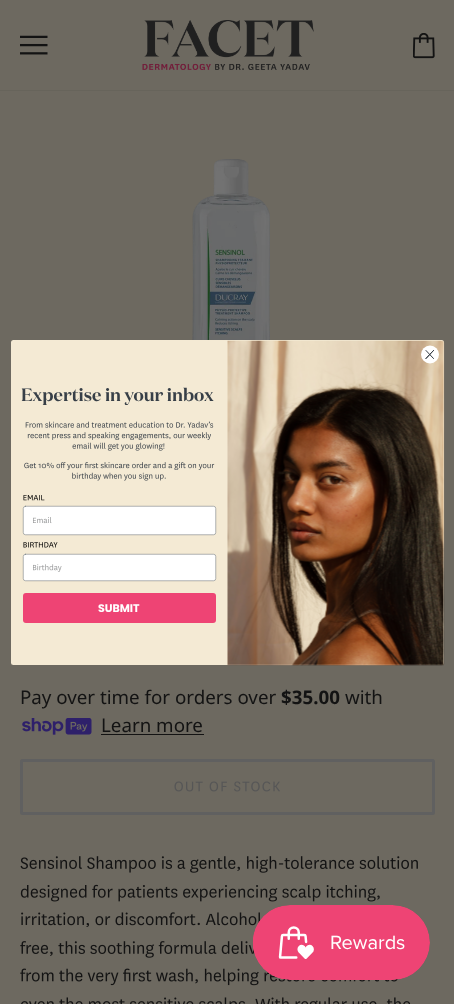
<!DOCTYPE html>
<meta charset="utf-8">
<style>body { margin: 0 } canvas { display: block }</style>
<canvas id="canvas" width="454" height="1004"></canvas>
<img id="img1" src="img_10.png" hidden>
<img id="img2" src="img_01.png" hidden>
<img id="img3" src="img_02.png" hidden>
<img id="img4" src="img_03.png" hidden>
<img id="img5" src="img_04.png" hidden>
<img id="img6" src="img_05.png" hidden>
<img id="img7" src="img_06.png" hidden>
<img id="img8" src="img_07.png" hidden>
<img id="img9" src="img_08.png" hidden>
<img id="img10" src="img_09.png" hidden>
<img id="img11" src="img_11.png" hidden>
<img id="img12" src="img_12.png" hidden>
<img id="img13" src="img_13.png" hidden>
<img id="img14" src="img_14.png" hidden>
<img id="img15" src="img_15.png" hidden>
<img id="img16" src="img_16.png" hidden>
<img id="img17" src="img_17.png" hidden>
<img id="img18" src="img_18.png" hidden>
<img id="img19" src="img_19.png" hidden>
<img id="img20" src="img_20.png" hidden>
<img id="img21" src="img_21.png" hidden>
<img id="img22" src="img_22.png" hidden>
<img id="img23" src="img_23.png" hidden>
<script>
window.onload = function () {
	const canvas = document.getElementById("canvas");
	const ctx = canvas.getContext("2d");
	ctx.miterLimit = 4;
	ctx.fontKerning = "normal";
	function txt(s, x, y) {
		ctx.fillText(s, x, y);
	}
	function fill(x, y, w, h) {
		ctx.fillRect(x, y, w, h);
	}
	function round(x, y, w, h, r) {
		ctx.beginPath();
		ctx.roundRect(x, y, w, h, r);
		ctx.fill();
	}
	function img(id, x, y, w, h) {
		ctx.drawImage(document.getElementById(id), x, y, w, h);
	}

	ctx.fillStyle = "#6D6960";
	fill(0, 0, 454, 1004);
	ctx.fillStyle = "#F4EAD4";
	round(11, 340, 433, 325, 2.5);
	img("img1", 227, 340, 218, 326);
	ctx.fillStyle = "#FFFFFF";
	ctx.beginPath();
	ctx.arc(430, 354.5, 9, 0, Math.PI * 2);
	ctx.fill();
	ctx.beginPath();
	ctx.moveTo(426, 350.5);
	ctx.lineTo(433.5, 358.5);
	ctx.moveTo(426, 358.5);
	ctx.lineTo(433.5, 350.5);
	ctx.closePath();
	ctx.strokeStyle = "#373F47";
	ctx.lineCap = "round";
	ctx.lineJoin = "round";
	ctx.stroke();
	img("img2", 25, 421, 189, 7);
	img("img3", 27, 432, 184, 8);
	img("img4", 72, 442, 93, 9);
	img("img5", 24, 462, 191, 8);
	img("img6", 72, 472, 94, 9);
	img("img7", 23, 495, 22, 6);
	ctx.beginPath();
	ctx.roundRect(23.25, 506.25, 192.5, 28.5, 2.25);
	ctx.fill();
	ctx.strokeStyle = "#606A72";
	ctx.lineWidth = 0.5;
	ctx.lineJoin = "miter";
	ctx.stroke();
	img("img8", 33, 517, 19, 7);
	img("img9", 23, 542, 35, 6);
	ctx.beginPath();
	ctx.roundRect(23.25, 554.25, 192.5, 26.5, 2.25);
	ctx.fill();
	ctx.stroke();
	img("img10", 33, 564, 29, 8);
	ctx.fillStyle = "#EE4474";
	round(23, 593, 193, 30, 3);
	ctx.fillStyle = "#67645B";
	fill(0, 90, 454, 1);
	img("img11", 20, 35, 28, 20);
	img("img12", 142, 20, 172, 50);
	img("img13", 413, 33, 22, 26);
	img("img14", 192, 159, 78, 181);
	img("img15", 22, 718, 70, 17);
	ctx.fillStyle = "#131313";
	fill(101, 734, 103, 1);
	ctx.beginPath();
	ctx.roundRect(21.5, 760.5, 412, 53, 1);
	ctx.strokeStyle = "#606060";
	ctx.lineWidth = 3;
	ctx.stroke();
	img("img16", 174, 781, 106, 11);
	img("img17", 20, 856, 398, 17);
	img("img18", 20, 884, 360, 18);
	img("img19", 21, 912, 239, 15);
	img("img20", 20, 941, 234, 17);
	img("img21", 20, 968, 378, 18);
	img("img22", 21, 997, 390, 7);
	img("img23", 252, 905, 178, 75);
	ctx.font = "600 17.75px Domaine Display";
	ctx.fillStyle = "#373F47";
	txt("Expertise in your inbox", 21, 401);
	ctx.font = "bold 11px Poppins";
	ctx.fillStyle = "#FFFFFF";
	txt("SUBMIT", 98, 612);
	ctx.font = "18.75px Noto Sans";
	ctx.fillStyle = "#131313";
	txt("Pay over time for orders over", 20, 704);
	ctx.font = "bold 18.75px Noto Sans";
	txt("$35.00", 281, 704);
	ctx.font = "18.75px Noto Sans";
	txt("with", 345, 704);
	txt("Learn more", 101, 732);
};
</script>
